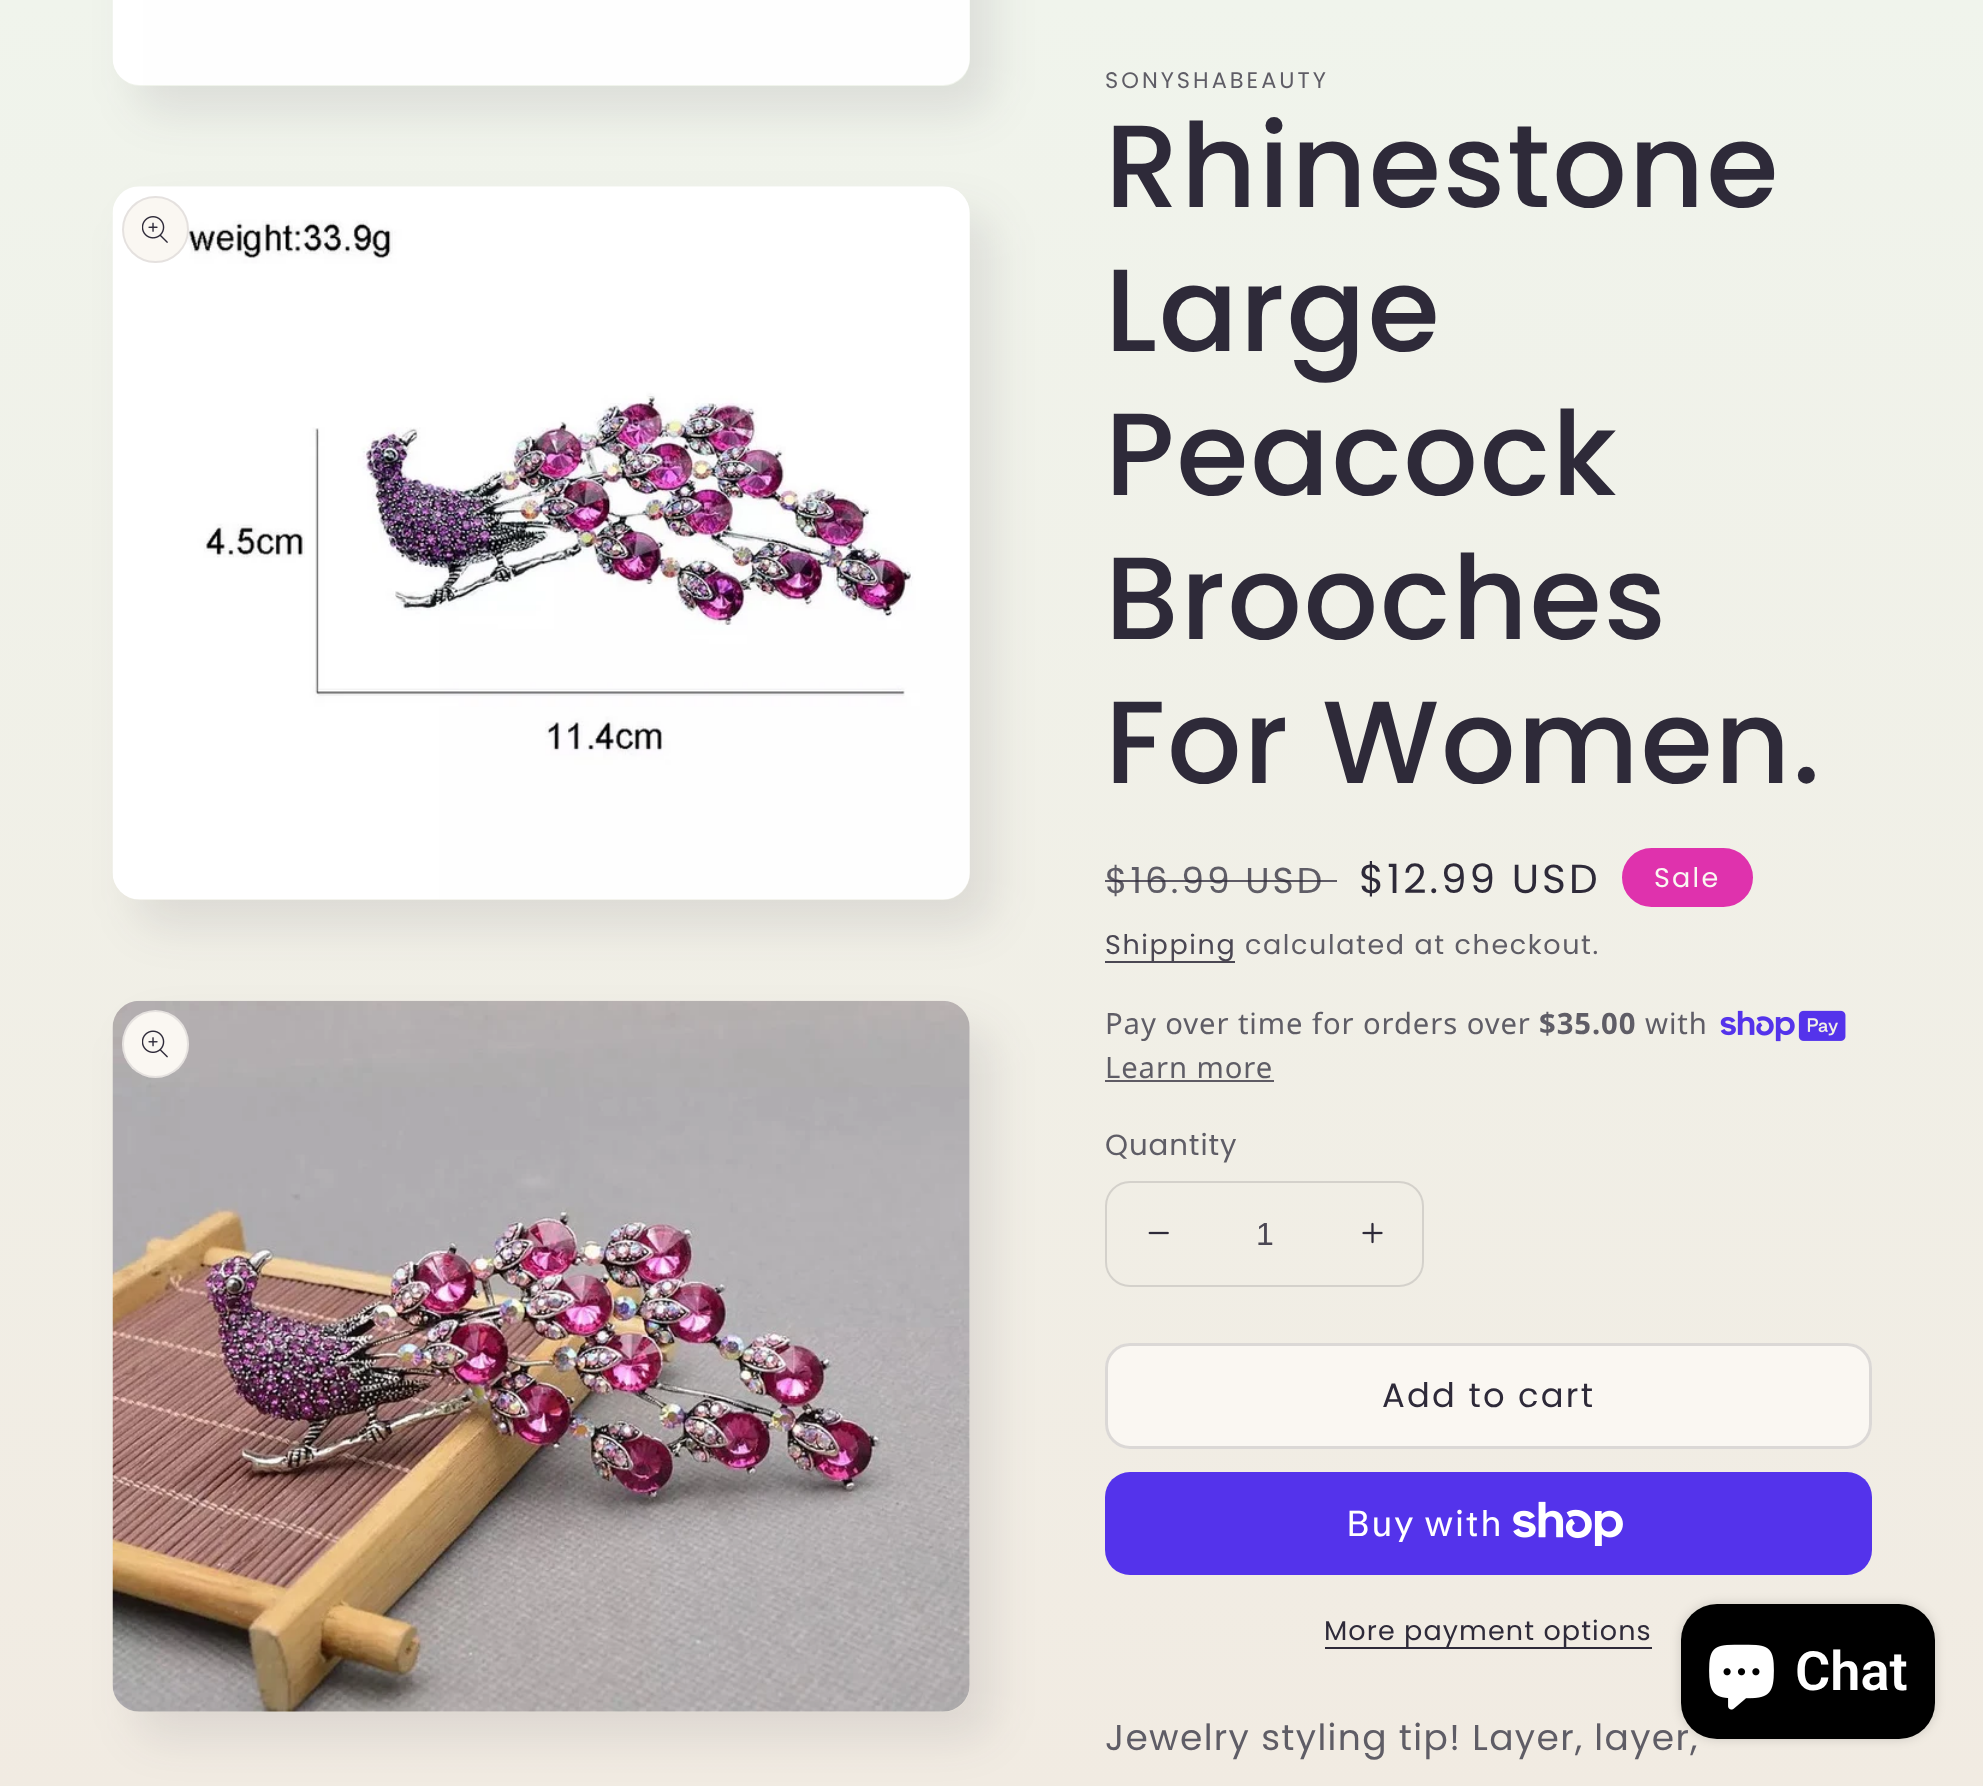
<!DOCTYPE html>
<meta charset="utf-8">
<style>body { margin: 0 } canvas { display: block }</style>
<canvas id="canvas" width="1983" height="1786"></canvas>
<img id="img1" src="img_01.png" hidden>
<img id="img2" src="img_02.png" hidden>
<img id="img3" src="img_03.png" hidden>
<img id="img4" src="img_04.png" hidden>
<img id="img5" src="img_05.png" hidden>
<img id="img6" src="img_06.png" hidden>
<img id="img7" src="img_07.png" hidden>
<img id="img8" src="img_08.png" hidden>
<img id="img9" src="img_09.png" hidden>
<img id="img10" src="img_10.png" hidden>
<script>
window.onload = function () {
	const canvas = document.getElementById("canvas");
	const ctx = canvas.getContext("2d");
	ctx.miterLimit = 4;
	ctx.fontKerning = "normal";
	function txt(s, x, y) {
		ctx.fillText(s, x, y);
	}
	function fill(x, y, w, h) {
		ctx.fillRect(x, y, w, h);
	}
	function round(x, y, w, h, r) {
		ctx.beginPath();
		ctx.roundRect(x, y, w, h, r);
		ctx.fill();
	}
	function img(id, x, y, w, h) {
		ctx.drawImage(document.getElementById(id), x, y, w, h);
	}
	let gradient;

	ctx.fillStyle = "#FFFFFF";
	fill(0, 0, 1983, 1786);
	gradient = ctx.createLinearGradient(992, 0, 992, 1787);
	gradient.addColorStop(0, "#F0F4EC");
	gradient.addColorStop(1, "#F1EBE2");
	ctx.fillStyle = gradient;
	fill(0, 0, 1983, 1786);
	ctx.fillStyle = "rgba(46, 42, 57, 0.1)";
	ctx.filter = "blur(22.5px)";
	ctx.beginPath();
	ctx.roundRect(135, -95, 857, 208, 27);
	ctx.fill();
	ctx.filter = "none";
	gradient = ctx.createLinearGradient(992, 0, 992, 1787);
	gradient.addColorStop(0, "#F0F4EC");
	gradient.addColorStop(1, "#F1EBE2");
	ctx.fillStyle = gradient;
	ctx.beginPath();
	ctx.roundRect(113, 0, 857, 86, [0, 0, 27, 27]);
	ctx.fill();
	img("img1", 112, 0, 858, 85);
	ctx.fillStyle = "rgba(46, 42, 57, 0.1)";
	ctx.filter = "blur(22.5px)";
	ctx.beginPath();
	ctx.roundRect(135, 214, 857, 713, 27);
	ctx.fill();
	ctx.filter = "none";
	gradient = ctx.createLinearGradient(992, 0, 992, 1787);
	gradient.addColorStop(0, "#F0F4EC");
	gradient.addColorStop(1, "#F1EBE2");
	ctx.fillStyle = gradient;
	round(113, 187, 857, 713, 27);
	img("img2", 112, 186, 858, 714);
	ctx.fillStyle = "#FAF7F2";
	ctx.beginPath();
	ctx.arc(155.5, 229.5, 33.5, 0, Math.PI * 2);
	ctx.fill();
	ctx.beginPath();
	ctx.arc(155.5, 229.5, 32.5, 0, Math.PI * 2);
	ctx.strokeStyle = "rgba(46, 42, 57, 0.1)";
	ctx.lineWidth = 2;
	ctx.stroke();
	img("img3", 142, 216, 26, 27);
	ctx.fillStyle = "rgba(46, 42, 57, 0.1)";
	ctx.filter = "blur(22.5px)";
	ctx.beginPath();
	ctx.roundRect(135, 1028, 857, 711, 27);
	ctx.fill();
	ctx.filter = "none";
	gradient = ctx.createLinearGradient(992, 0, 992, 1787);
	gradient.addColorStop(0, "#F0F4EC");
	gradient.addColorStop(1, "#F1EBE2");
	ctx.fillStyle = gradient;
	round(113, 1001, 857, 711, 27);
	img("img4", 112, 1000, 858, 712);
	ctx.fillStyle = "#FAF7F2";
	round(122, 1010, 67, 68, 33.5);
	ctx.beginPath();
	ctx.roundRect(123, 1011, 65, 66, 32.5);
	ctx.stroke();
	img("img5", 142, 1030, 26, 28);
	ctx.fillStyle = "#DF32AD";
	ctx.beginPath();
	ctx.roundRect(1623, 849, 129, 57, 28.5);
	ctx.fill();
	ctx.strokeStyle = "#DF32AD";
	ctx.stroke();
	ctx.fillStyle = "#4B4853";
	fill(1105, 961, 130, 2);
	img("img6", 1720, 1010, 126, 32);
	ctx.fillStyle = "#5F5B64";
	fill(1105, 1080, 169, 2);
	img("img7", 1148, 1231, 21, 4);
	img("img8", 1362, 1222, 21, 22);
	ctx.beginPath();
	ctx.roundRect(1106, 1182, 317, 104, 24);
	ctx.strokeStyle = "#D4D1CB";
	ctx.stroke();
	ctx.fillStyle = "#FAF7F2";
	round(1105, 1343, 767, 106, 25);
	ctx.beginPath();
	ctx.roundRect(1106, 1344, 765, 104, 24);
	ctx.strokeStyle = "#FAF7F2";
	ctx.stroke();
	ctx.beginPath();
	ctx.roundRect(1106.5, 1344.5, 764, 103, 23.5);
	ctx.strokeStyle = "rgba(46, 42, 57, 0.15)";
	ctx.lineWidth = 3;
	ctx.stroke();
	ctx.fillStyle = "#5433EB";
	round(1105, 1472, 767, 103, 25);
	img("img9", 1513, 1501, 110, 45);
	ctx.fillStyle = "#2E2A39";
	fill(1325, 1647, 327, 2);
	ctx.fillStyle = "rgba(0, 0, 0, 0.15)";
	ctx.filter = "blur(5.5px)";
	ctx.beginPath();
	ctx.roundRect(1681, 1604, 254, 135, 36);
	ctx.fill();
	ctx.filter = "none";
	ctx.letterSpacing = "3px";
	ctx.font = "22.5px Poppins";
	ctx.fillStyle = "#5F5D66";
	txt("SONYSHABEAUTY", 1105, 88);
	ctx.letterSpacing = "1.75px";
	ctx.font = "500 117px Poppins";
	ctx.fillStyle = "#2E2A39";
	txt("Rhinestone", 1105, 207);
	txt("Large", 1105, 351);
	txt("Peacock", 1105, 495);
	txt("Brooches", 1105, 639);
	txt("For Women.", 1105, 783);
	ctx.letterSpacing = "3px";
	ctx.font = "36px Poppins";
	ctx.fillStyle = "#5F5D66";
	txt("$16.99 USD", 1105, 893);
	ctx.fillStyle = "rgba(46, 42, 57, 0.75)";
	fill(1105, 880, 232, 2);
	ctx.font = "40.5px Poppins";
	ctx.fillStyle = "#2E2A39";
	txt("$12.99 USD", 1359, 893);
	ctx.letterSpacing = "2.25px";
	ctx.font = "27px Poppins";
	ctx.fillStyle = "#FAF7F2";
	txt("Sale", 1654, 887);
	ctx.letterSpacing = "1.6px";
	ctx.fillStyle = "#4B4753";
	txt("Shipping", 1105, 954);
	ctx.fillStyle = "#5F5D66";
	txt("calculated at checkout.", 1245, 954);
	ctx.letterSpacing = "0.9px";
	ctx.font = "29.25px Noto Sans";
	txt("Pay over time for orders over", 1105, 1034);
	ctx.font = "bold 29.25px Noto Sans";
	txt("$35.00", 1539, 1034);
	ctx.font = "29.25px Noto Sans";
	txt("with", 1645, 1034);
	txt("Learn more", 1105, 1078);
	ctx.font = "29.25px Poppins";
	txt("Quantity", 1105, 1155);
	ctx.letterSpacing = "0px";
	ctx.font = "32px Liberation Sans";
	ctx.fillStyle = "#4B4753";
	txt("1", 1256, 1245);
	ctx.letterSpacing = "2.25px";
	ctx.font = "33.75px Poppins";
	ctx.fillStyle = "#2E2A39";
	txt("Add to cart", 1382, 1407);
	ctx.letterSpacing = "1.35px";
	ctx.font = "36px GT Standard";
	ctx.fillStyle = "#FFFFFF";
	txt("Buy with", 1346, 1536);
	ctx.letterSpacing = "1.1px";
	ctx.font = "27px Poppins";
	ctx.fillStyle = "#2E2A39";
	txt("More payment options", 1324, 1640);
	ctx.letterSpacing = "1.35px";
	ctx.font = "36px Poppins";
	ctx.fillStyle = "#5F5D66";
	txt("Jewelry styling tip! Layer, layer,", 1105, 1750);
	ctx.fillStyle = "#000000";
	round(1681, 1604, 254, 135, 36);
	img("img10", 1709, 1644, 65, 66);
	ctx.letterSpacing = "0px";
	ctx.font = "600 54px Roboto";
	ctx.fillStyle = "#FFFFFF";
	txt("Chat", 1795, 1690);
};
</script>
